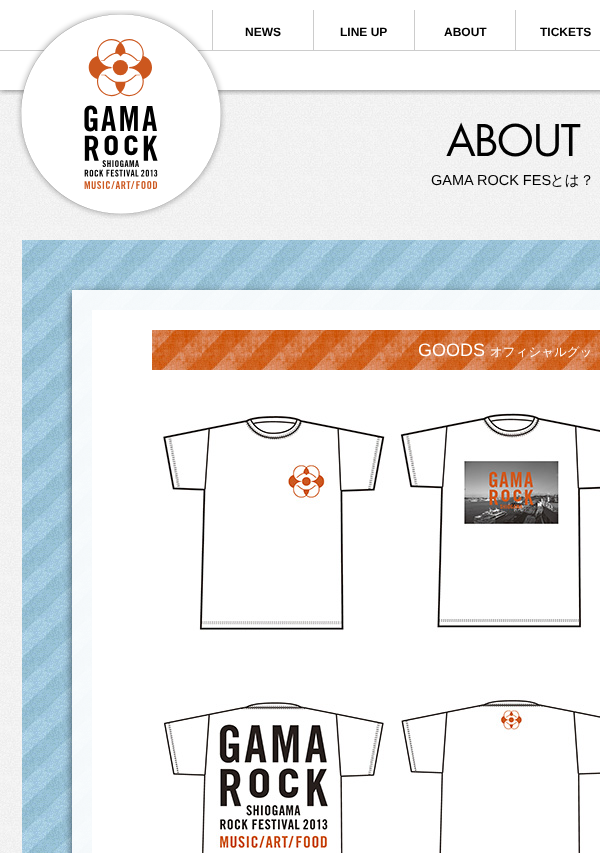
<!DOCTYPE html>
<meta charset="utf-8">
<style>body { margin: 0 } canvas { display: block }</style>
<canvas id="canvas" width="600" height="853"></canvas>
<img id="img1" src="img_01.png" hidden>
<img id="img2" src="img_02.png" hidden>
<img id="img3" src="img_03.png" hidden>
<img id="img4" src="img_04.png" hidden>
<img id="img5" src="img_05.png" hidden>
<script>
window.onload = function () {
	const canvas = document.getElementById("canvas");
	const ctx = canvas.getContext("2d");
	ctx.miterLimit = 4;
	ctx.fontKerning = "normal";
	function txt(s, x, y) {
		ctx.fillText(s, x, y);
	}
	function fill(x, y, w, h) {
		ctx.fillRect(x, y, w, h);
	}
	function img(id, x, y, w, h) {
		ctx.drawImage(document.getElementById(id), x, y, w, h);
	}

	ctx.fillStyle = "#FFFFFF";
	fill(0, 0, 600, 853);
	img("img1", 0, 90, 600, 763);
	ctx.save();
	ctx.beginPath();
	ctx.rect(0, 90, 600, 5);
	ctx.clip();
	ctx.fillStyle = "rgba(0, 0, 0, 0.6)";
	ctx.filter = "blur(3px)";
	ctx.beginPath();
	ctx.rect(0, 0, 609, 90);
	ctx.fill();
	ctx.filter = "none";
	ctx.restore();
	ctx.fillStyle = "#CCCCCC";
	fill(0, 50, 600, 1);
	fill(212, 10, 1, 40);
	img("img2", 16, 10, 210, 209);
	fill(313, 10, 1, 40);
	fill(414, 10, 1, 40);
	fill(515, 10, 1, 40);
	img("img3", 22, 240, 578, 613);
	ctx.save();
	ctx.beginPath();
	ctx.moveTo(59, 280);
	ctx.lineTo(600, 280);
	ctx.lineTo(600, 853);
	ctx.lineTo(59, 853);
	ctx.closePath();
	ctx.moveTo(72, 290);
	ctx.lineTo(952, 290);
	ctx.lineTo(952, 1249);
	ctx.lineTo(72, 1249);
	ctx.closePath();
	ctx.clip("evenodd");
	ctx.fillStyle = "rgba(0, 0, 0, 0.6)";
	ctx.filter = "blur(4px)";
	ctx.beginPath();
	ctx.rect(72, 293, 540, 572);
	ctx.fill();
	ctx.filter = "none";
	ctx.restore();
	ctx.fillStyle = "rgba(255, 255, 255, 0.9)";
	fill(72, 290, 528, 563);
	ctx.fillStyle = "#FFFFFF";
	fill(92, 310, 508, 543);
	img("img4", 152, 330, 448, 40);
	img("img5", 162, 413, 438, 440);
	ctx.font = "bold 12px Liberation Sans";
	ctx.fillStyle = "#000000";
	txt("NEWS", 245, 36);
	txt("LINE UP", 340, 36);
	txt("ABOUT", 444, 36);
	txt("TICKETS", 540, 36);
	ctx.letterSpacing = "-2.5px";
	ctx.font = "48px Futura PT";
	txt("ABOUT", 446, 156);
	ctx.letterSpacing = "0px";
	ctx.font = "14.5px Liberation Sans";
	txt("GAMA ROCK FES", 431, 185);
	ctx.font = "500 14.5px WenQuanYi Zen Hei";
	txt("とは？", 550, 185);
	ctx.font = "18px Liberation Sans";
	ctx.fillStyle = "#FFFFFF";
	txt("GOODS", 418, 356);
	ctx.font = "500 12.5px WenQuanYi Zen Hei";
	txt("オフィシャルグッ", 490, 356);
};
</script>
